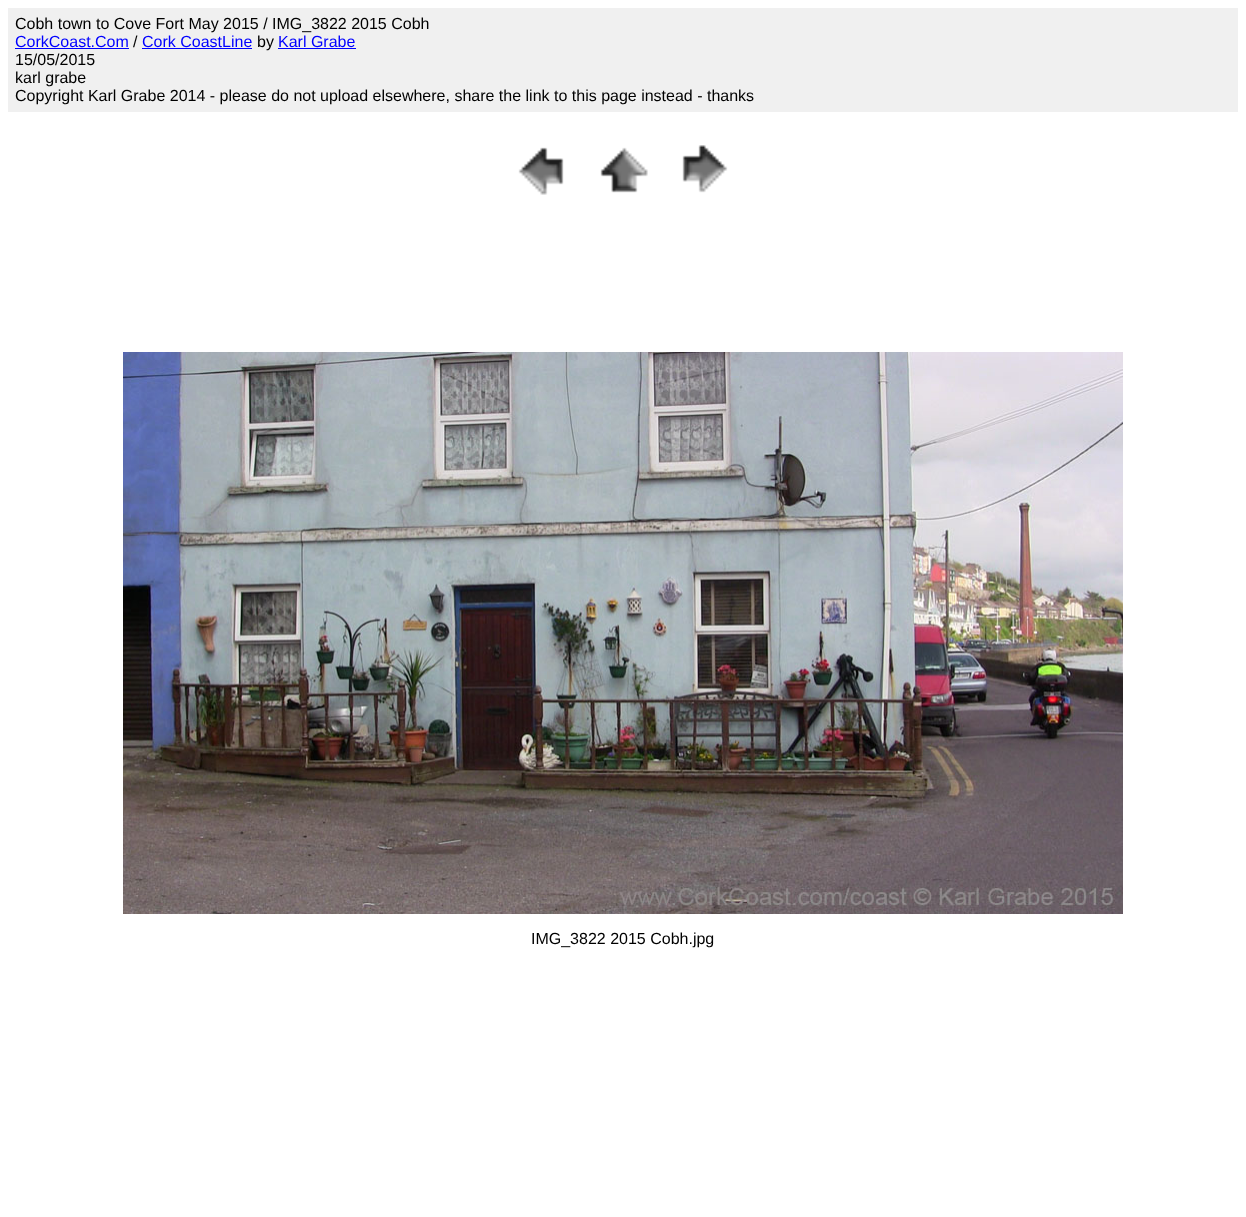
<!DOCTYPE html>
<meta charset="utf-8">
<style>body { margin: 0 } canvas { display: block }</style>
<canvas id="canvas" width="1246" height="1217"></canvas>
<img id="img1" src="img_01.png" hidden>
<img id="img2" src="img_02.png" hidden>
<img id="img3" src="img_03.png" hidden>
<img id="img4" src="img_04.png" hidden>
<script>
window.onload = function () {
	const canvas = document.getElementById("canvas");
	const ctx = canvas.getContext("2d");
	ctx.miterLimit = 4;
	ctx.fontKerning = "normal";
	function txt(s, x, y) {
		ctx.fillText(s, x, y);
	}
	function fill(x, y, w, h) {
		ctx.fillRect(x, y, w, h);
	}
	function img(id, x, y, w, h) {
		ctx.drawImage(document.getElementById(id), x, y, w, h);
	}

	ctx.fillStyle = "#FFFFFF";
	fill(0, 0, 1246, 1217);
	ctx.fillStyle = "#F0F0F0";
	fill(8, 8, 1230, 104);
	ctx.fillStyle = "#0000FF";
	fill(15, 48, 114, 1);
	fill(142, 48, 110, 1);
	fill(278, 48, 78, 1);
	img("img1", 518, 147, 46, 48);
	img("img2", 600, 147, 48, 46);
	img("img3", 682, 145, 46, 48);
	img("img4", 123, 352, 1000, 562);
	ctx.font = "16px Liberation Sans";
	ctx.fillStyle = "#000000";
	txt("Cobh town to Cove Fort May 2015 / IMG_3822 2015 Cobh", 15, 29);
	ctx.fillStyle = "#0000FF";
	txt("CorkCoast.Com", 15, 47);
	ctx.fillStyle = "#000000";
	txt("/", 133, 47);
	ctx.fillStyle = "#0000FF";
	txt("Cork CoastLine", 142, 47);
	ctx.fillStyle = "#000000";
	txt("by", 257, 47);
	ctx.fillStyle = "#0000FF";
	txt("Karl Grabe", 278, 47);
	ctx.fillStyle = "#000000";
	txt("15/05/2015", 15, 65);
	txt("karl grabe", 15, 83);
	txt("Copyright Karl Grabe 2014 - please do not upload elsewhere, share the link to this page instead - thanks", 15, 101);
	txt("IMG_3822 2015 Cobh.jpg", 531, 944);
};
</script>
